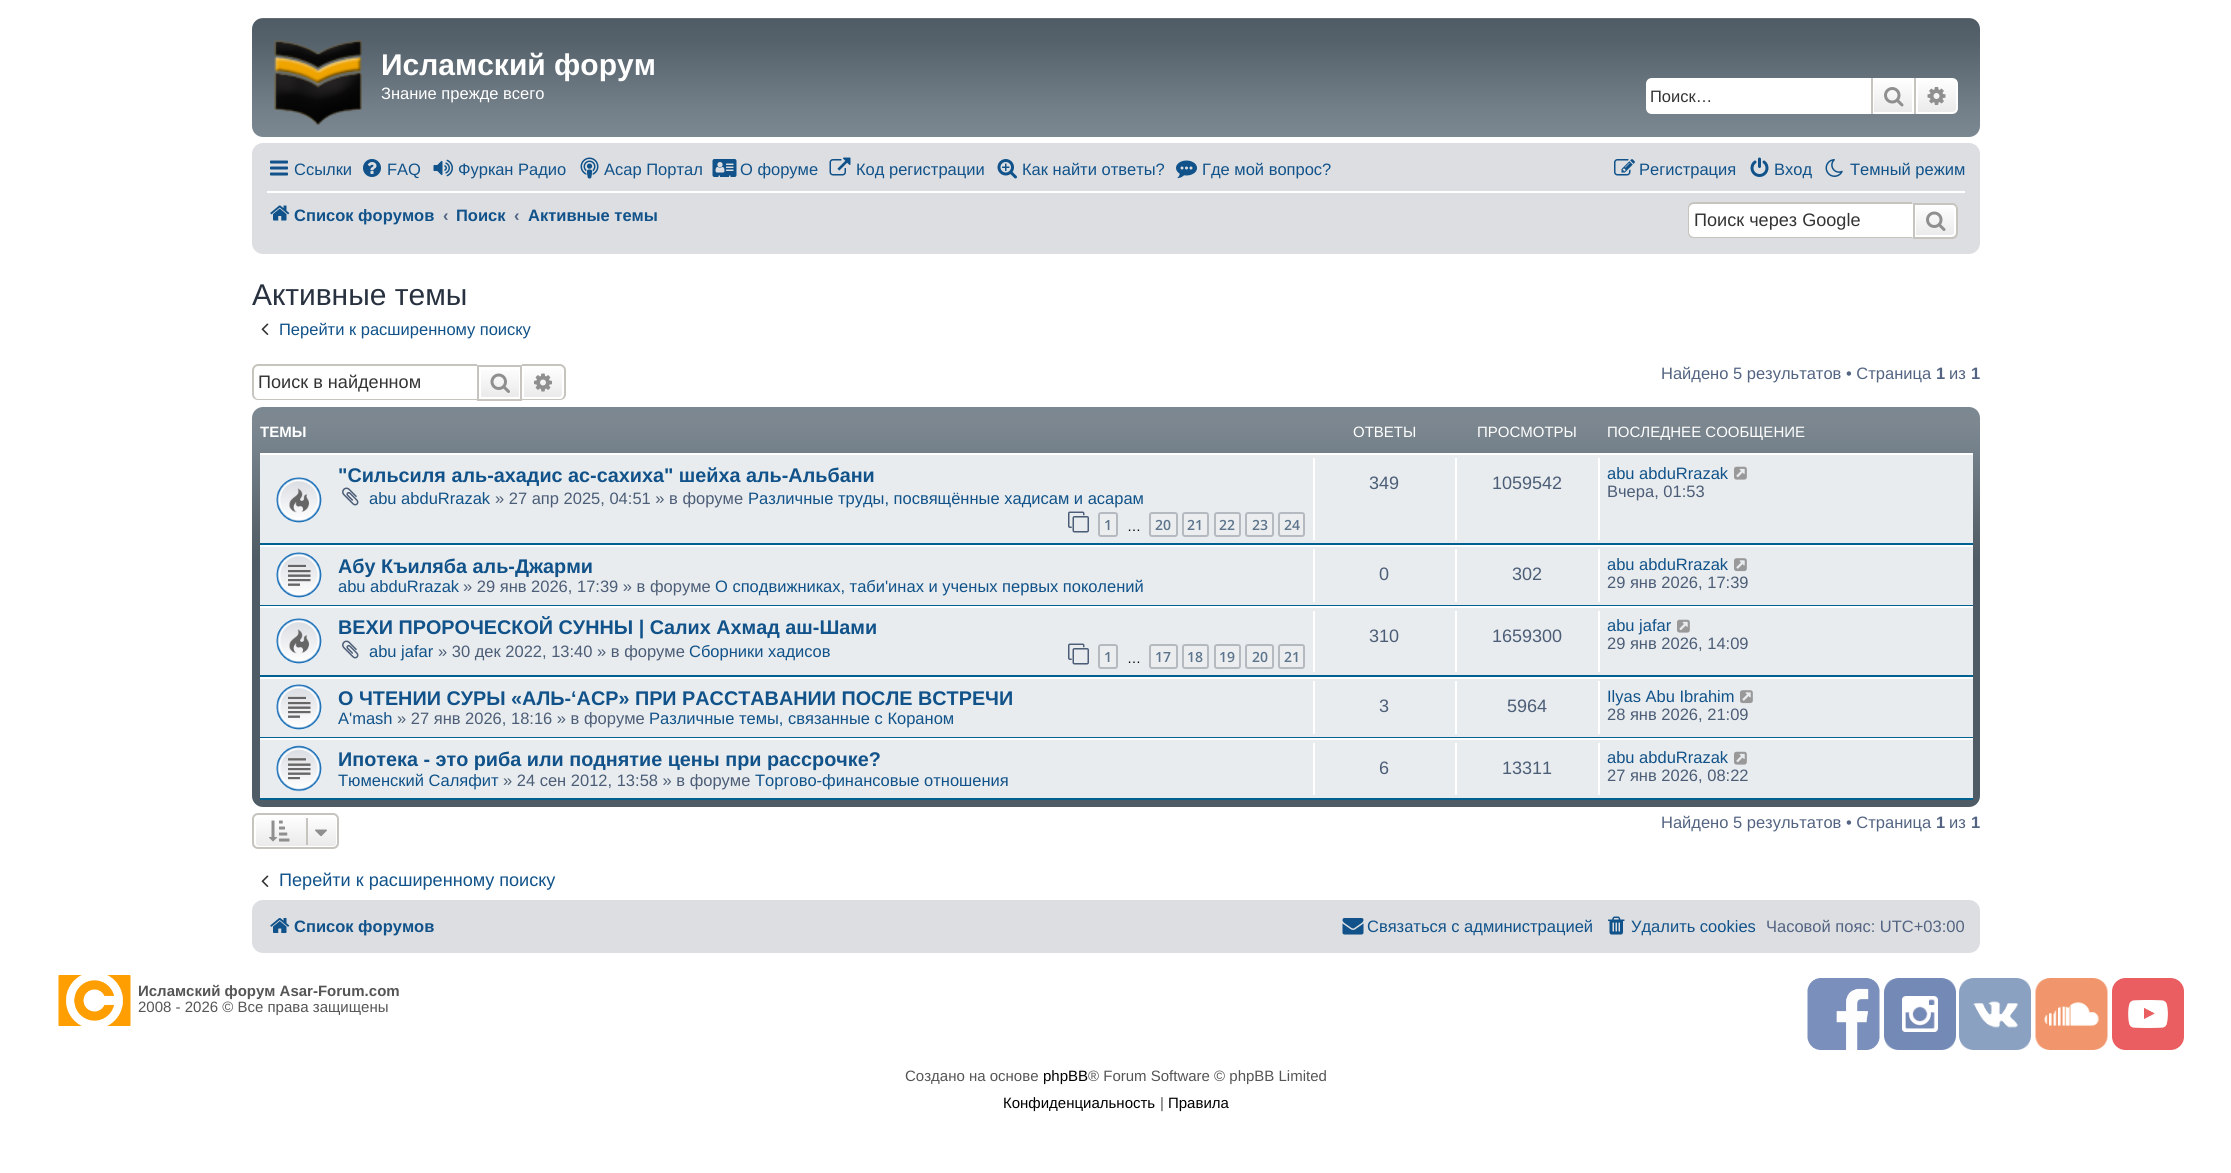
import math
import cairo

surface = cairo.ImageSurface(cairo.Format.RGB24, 2231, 1173)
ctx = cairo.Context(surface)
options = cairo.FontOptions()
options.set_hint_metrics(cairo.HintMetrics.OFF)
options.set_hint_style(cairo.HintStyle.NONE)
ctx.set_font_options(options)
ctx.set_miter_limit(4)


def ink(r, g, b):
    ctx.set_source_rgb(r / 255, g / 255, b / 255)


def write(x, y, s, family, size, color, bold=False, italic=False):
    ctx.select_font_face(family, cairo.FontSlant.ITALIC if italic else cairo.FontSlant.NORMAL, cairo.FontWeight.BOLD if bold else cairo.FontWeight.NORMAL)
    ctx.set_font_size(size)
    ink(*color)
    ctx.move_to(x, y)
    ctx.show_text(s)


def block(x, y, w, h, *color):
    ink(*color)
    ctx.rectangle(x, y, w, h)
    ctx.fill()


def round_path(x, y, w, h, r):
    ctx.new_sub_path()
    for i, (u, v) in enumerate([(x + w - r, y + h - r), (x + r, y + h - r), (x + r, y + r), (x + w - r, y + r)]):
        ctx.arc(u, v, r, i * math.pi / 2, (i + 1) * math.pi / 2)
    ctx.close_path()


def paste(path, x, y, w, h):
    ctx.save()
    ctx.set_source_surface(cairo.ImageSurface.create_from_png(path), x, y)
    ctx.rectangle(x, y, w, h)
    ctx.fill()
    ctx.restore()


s1 = dict(family="Liberation Sans", size=30, color=(255, 255, 255), bold=True)
s2 = dict(family="Liberation Sans", size=16.5, color=(255, 255, 255))
s3 = dict(family="Liberation Sans", size=16.5, color=(51, 51, 51))
s4 = dict(family="Liberation Sans", size=16.5, color=(16, 82, 137))
s5 = dict(family="Liberation Sans", size=16.5, color=(16, 82, 137), bold=True)
s6 = dict(family="Liberation Sans", size=16.5, color=(83, 100, 130), bold=True)
s7 = dict(family="Liberation Sans", size=18.1, color=(51, 51, 51))
s8 = dict(family="Liberation Sans", size=30, color=(40, 49, 63))
s9 = dict(family="Liberation Sans", size=16.5, color=(83, 100, 130))
s10 = dict(family="Liberation Sans", size=15, color=(255, 255, 255), bold=True)
s11 = dict(family="Liberation Sans", size=15, color=(255, 255, 255))
s12 = dict(family="Liberation Sans", size=19.8, color=(16, 82, 137), bold=True)
s13 = dict(family="Liberation Sans", size=16.5, color=(76, 93, 119))
s14 = dict(family="Open Sans SemiBold", size=14, color=(92, 117, 140))
s15 = dict(family="Liberation Sans", size=14, color=(0, 0, 0))
s16 = dict(family="Liberation Sans", size=18, color=(76, 93, 119))
s17 = dict(family="Liberation Sans", size=18.1, color=(16, 82, 137))
s18 = dict(family="Liberation Sans", size=15, color=(85, 85, 85), bold=True)
s19 = dict(family="Liberation Sans", size=15, color=(85, 85, 85))
s20 = dict(family="Liberation Sans", size=15, color=(0, 0, 0))

ink(255, 255, 255)
ctx.paint()
gradient = cairo.LinearGradient(1116, 18, 1116, 137)
gradient.add_color_stop_rgba(0, 0.431, 0.467, 0.498, 1)
gradient.add_color_stop_rgba(0.01, 0.314, 0.361, 0.396, 1)
gradient.add_color_stop_rgba(0.2, 0.337, 0.384, 0.42, 1)
gradient.add_color_stop_rgba(0.75, 0.451, 0.498, 0.533, 1)
gradient.add_color_stop_rgba(1, 0.486, 0.533, 0.569, 1)
ctx.set_source(gradient)
round_path(252, 18, 1728, 119, 11)
ctx.fill()
paste("pic1.png", 274, 40, 88, 85)
write(381, 75, "Исламский форум", **s1)
write(381, 99, "Знание прежде всего", **s2)
ctx.new_path()
ctx.move_to(1652, 78)
ctx.line_to(1871, 78)
ctx.line_to(1871, 114)
ctx.line_to(1652, 114)
ctx.curve_to(1648.5, 114, 1646, 111.5, 1646, 108)
ctx.line_to(1646, 84)
ctx.curve_to(1646, 80.5, 1648.5, 78, 1652, 78)
ctx.close_path()
ctx.fill()
write(1650, 102, "Поиск…", **s3)
gradient = cairo.LinearGradient(1893, 78, 1893, 114)
gradient.add_color_stop_rgba(0, 1, 1, 1, 1)
gradient.add_color_stop_rgba(1, 0.914, 0.914, 0.914, 1)
ctx.set_source(gradient)
ctx.rectangle(1874, 80, 38, 32)
ctx.fill()
ctx.rectangle(1873, 79, 40, 34)
ink(255, 255, 255)
ctx.stroke()
block(1914, 78, 2, 36, 199, 195, 191)
block(1871, 78, 2, 36, 199, 195, 191)
paste("pic2.png", 1884, 87, 20, 20)
gradient = cairo.LinearGradient(1937, 78, 1937, 114)
gradient.add_color_stop_rgba(0, 1, 1, 1, 1)
gradient.add_color_stop_rgba(1, 0.914, 0.914, 0.914, 1)
ctx.set_source(gradient)
ctx.new_path()
ctx.move_to(1917, 79)
ctx.line_to(1952, 79)
ctx.curve_to(1955, 79, 1957, 81, 1957, 84)
ctx.line_to(1957, 108)
ctx.curve_to(1957, 111, 1955, 113, 1952, 113)
ctx.line_to(1917, 113)
ctx.close_path()
ctx.fill_preserve()
ink(255, 255, 255)
ctx.stroke()
paste("pic3.png", 1927, 87, 19, 18)
ink(220, 222, 226)
round_path(252, 143, 1728, 111, 11)
ctx.fill()
paste("pic4.png", 270, 160, 18, 16)
write(294, 175, "Ссылки", **s4)
paste("pic5.png", 363, 159, 18, 18)
write(387, 175, "FAQ", **s4)
paste("pic6.png", 433, 159, 20, 18)
write(458, 175, "Фуркан Радио", **s4)
paste("pic7.png", 580, 157, 19, 22)
write(604, 175, "Асар Портал", **s4)
paste("pic8.png", 712, 159, 25, 18)
write(740, 175, "О форуме", **s4)
paste("pic9.png", 829, 157, 22, 19)
write(856, 175, "Код регистрации", **s4)
paste("pic10.png", 997, 159, 20, 20)
write(1022, 175, "Как найти ответы?", **s4)
paste("pic11.png", 1176, 160, 21, 19)
write(1202, 175, "Где мой вопрос?", **s4)
paste("pic12.png", 1614, 159, 21, 17)
write(1639, 175, "Регистрация", **s4)
paste("pic13.png", 1750, 157, 19, 20)
write(1774, 175, "Вход", **s4)
paste("pic14.png", 1825, 159, 18, 18)
write(1850, 175, "Темный режим", **s4)
block(267, 191, 1698, 2, 255, 255, 255)
paste("pic15.png", 270, 205, 20, 16)
write(294, 221, "Список форумов", **s5)
write(443, 221, "‹", **s6)
write(456, 221, "Поиск", **s5)
write(514, 221, "‹", **s6)
write(528, 221, "Активные темы", **s5)
ink(255, 255, 255)
ctx.new_path()
ctx.move_to(1694, 204)
ctx.line_to(1913, 204)
ctx.line_to(1913, 237)
ctx.line_to(1694, 237)
ctx.curve_to(1691, 237, 1689, 235, 1689, 232)
ctx.line_to(1689, 209)
ctx.curve_to(1689, 206, 1691, 204, 1694, 204)
ctx.close_path()
ctx.fill()
ink(199, 195, 191)
ctx.set_fill_rule(cairo.FillRule.EVEN_ODD)
ctx.new_path()
ctx.move_to(1694, 202)
ctx.line_to(1912, 202)
ctx.line_to(1912, 238)
ctx.line_to(1694, 238)
ctx.curve_to(1690, 238, 1688, 236, 1688, 232)
ctx.line_to(1688, 208)
ctx.curve_to(1688, 205, 1690, 202, 1694, 202)
ctx.close_path()
ctx.move_to(1694, 204)
ctx.line_to(1912, 204)
ctx.line_to(1912, 237)
ctx.line_to(1694, 237)
ctx.curve_to(1691, 237, 1689, 235, 1689, 232)
ctx.line_to(1689, 208)
ctx.curve_to(1689, 206, 1691, 204, 1694, 204)
ctx.close_path()
ctx.fill()
write(1694, 226, "Поиск через Google", **s7)
ctx.save()
ctx.set_fill_rule(cairo.FillRule.WINDING)
ctx.new_path()
ctx.move_to(1913, 203)
ctx.line_to(1952, 203)
ctx.curve_to(1955.5, 203, 1958, 205.5, 1958, 209)
ctx.line_to(1958, 233)
ctx.curve_to(1958, 236.5, 1955.5, 239, 1952, 239)
ctx.line_to(1913, 239)
ctx.close_path()
ctx.clip()
gradient = cairo.LinearGradient(1935, 204, 1935, 237)
gradient.add_color_stop_rgba(0, 1, 1, 1, 1)
gradient.add_color_stop_rgba(1, 0.914, 0.914, 0.914, 1)
ctx.set_source(gradient)
ctx.rectangle(1916, 204, 42, 33)
ctx.fill()
ctx.restore()
ctx.new_path()
ctx.move_to(1915, 205)
ctx.line_to(1951, 205)
ctx.curve_to(1953, 205, 1955, 207, 1955, 209)
ctx.line_to(1955, 232)
ctx.curve_to(1955, 234, 1953, 236, 1951, 236)
ctx.line_to(1915, 236)
ctx.close_path()
ink(255, 255, 255)
ctx.stroke()
ctx.new_path()
ctx.move_to(1914, 204)
ctx.line_to(1952, 204)
ctx.curve_to(1955, 204, 1957, 206, 1957, 209)
ctx.line_to(1957, 233)
ctx.curve_to(1957, 236, 1955, 238, 1952, 238)
ctx.line_to(1914, 238)
ctx.close_path()
ink(199, 195, 191)
ctx.stroke()
paste("pic16.png", 1926, 211, 20, 20)
write(252, 305, "Активные темы", **s8)
paste("pic17.png", 261, 323, 8, 12)
write(279, 335, "Перейти к расширенному поиску", **s4)
ink(199, 195, 191)
ctx.new_path()
ctx.move_to(258, 364)
ctx.line_to(477, 364)
ctx.line_to(477, 400)
ctx.line_to(258, 400)
ctx.curve_to(255, 400, 252, 398, 252, 394)
ctx.line_to(252, 370)
ctx.curve_to(252, 367, 255, 364, 258, 364)
ctx.close_path()
ctx.move_to(258, 366)
ctx.line_to(477, 366)
ctx.line_to(477, 399)
ctx.line_to(258, 399)
ctx.curve_to(256, 399, 254, 397, 254, 394)
ctx.line_to(254, 370)
ctx.curve_to(254, 368, 256, 366, 258, 366)
ctx.close_path()
ctx.fill()
write(258, 388, "Поиск в найденном", **s7)
gradient = cairo.LinearGradient(500, 366, 500, 399)
gradient.add_color_stop_rgba(0, 1, 1, 1, 1)
gradient.add_color_stop_rgba(1, 0.914, 0.914, 0.914, 1)
ctx.set_source(gradient)
ctx.rectangle(481, 370, 38, 27)
ctx.fill()
ctx.rectangle(478, 366, 43, 34)
ink(199, 195, 191)
ctx.stroke()
paste("pic18.png", 490, 373, 20, 20)
gradient = cairo.LinearGradient(543, 366, 543, 399)
gradient.add_color_stop_rgba(0, 1, 1, 1, 1)
gradient.add_color_stop_rgba(1, 0.914, 0.914, 0.914, 1)
ctx.set_source(gradient)
ctx.new_path()
ctx.move_to(523, 367)
ctx.line_to(559, 367)
ctx.curve_to(561, 367, 563, 369, 563, 371)
ctx.line_to(563, 394)
ctx.curve_to(563, 396, 561, 398, 559, 398)
ctx.line_to(523, 398)
ctx.close_path()
ctx.fill_preserve()
ink(255, 255, 255)
ctx.stroke()
ink(199, 195, 191)
ctx.new_path()
ctx.move_to(522, 364)
ctx.line_to(560, 364)
ctx.curve_to(563, 364, 566, 367, 566, 370)
ctx.line_to(566, 394)
ctx.curve_to(566, 398, 563, 400, 560, 400)
ctx.line_to(522, 400)
ctx.close_path()
ctx.move_to(522, 366)
ctx.line_to(560, 366)
ctx.curve_to(562, 366, 564, 368, 564, 370)
ctx.line_to(564, 394)
ctx.curve_to(564, 397, 562, 399, 560, 399)
ctx.line_to(522, 399)
ctx.close_path()
ctx.fill()
paste("pic19.png", 534, 373, 18, 19)
write(1661, 379, "Найдено 5 результатов • Страница", **s9)
write(1936, 379, "1", **s6)
write(1949, 379, "из", **s9)
write(1971, 379, "1", **s6)
gradient = cairo.LinearGradient(1116, 406, 1116, 807)
gradient.add_color_stop_rgba(0, 0.486, 0.533, 0.569, 1)
gradient.add_color_stop_rgba(0.04, 0.486, 0.529, 0.565, 1)
gradient.add_color_stop_rgba(0.1, 0.463, 0.51, 0.545, 1)
gradient.add_color_stop_rgba(0.29, 0.357, 0.4, 0.435, 1)
gradient.add_color_stop_rgba(0.38, 0.314, 0.361, 0.396, 1)
gradient.add_color_stop_rgba(1, 0.314, 0.361, 0.396, 1)
ctx.set_source(gradient)
round_path(252, 407, 1728, 400, 11)
ctx.fill()
ctx.save()
ctx.set_fill_rule(cairo.FillRule.WINDING)
ctx.rectangle(260, 414, 1713, 39)
ctx.clip()
write(260, 437, "ТЕМЫ", **s10)
ctx.restore()
write(1353, 437, "ОТВЕТЫ", **s11)
write(1477, 437, "ПРОСМОТРЫ", **s11)
write(1607, 437, "ПОСЛЕДНЕЕ СООБЩЕНИЕ", **s11)
block(260, 455, 1713, 88, 232, 236, 238)
block(260, 453, 1713, 2, 255, 255, 255)
block(260, 543, 1713, 2, 0, 96, 143)
paste("pic20.png", 276, 477, 46, 46)
write(338, 482, "\"Сильсиля аль-ахадис ас-сахиха\" шейха аль-Альбани", **s12)
paste("pic21.png", 342, 487, 17, 19)
write(369, 504, "abu abduRrazak", **s4)
write(495, 504, "» 27 апр 2025, 04:51 » в форуме", **s13)
write(748, 504, "Различные труды, посвящённые хадисам и асарам", **s4)
paste("pic22.png", 1068, 511, 21, 22)
ink(236, 237, 238)
round_path(1099, 513, 18, 23, 2)
ctx.fill_preserve()
ink(180, 186, 192)
ctx.stroke()
write(1104, 530, "1", **s14)
write(1127, 531, "…", **s15)
ink(236, 237, 238)
round_path(1150, 513, 27, 23, 2)
ctx.fill_preserve()
ink(180, 186, 192)
ctx.stroke()
write(1155, 530, "20", **s14)
ink(236, 237, 238)
round_path(1183, 513, 25, 23, 2)
ctx.fill_preserve()
ink(180, 186, 192)
ctx.stroke()
write(1187, 530, "21", **s14)
ink(236, 237, 238)
round_path(1215, 513, 25, 23, 2)
ctx.fill_preserve()
ink(180, 186, 192)
ctx.stroke()
write(1219, 530, "22", **s14)
ink(236, 237, 238)
round_path(1246, 513, 27, 23, 2)
ctx.fill_preserve()
ink(180, 186, 192)
ctx.stroke()
write(1252, 530, "23", **s14)
ink(236, 237, 238)
round_path(1279, 513, 25, 23, 2)
ctx.fill_preserve()
ink(180, 186, 192)
ctx.stroke()
write(1284, 530, "24", **s14)
block(1313, 458, 2, 82, 255, 255, 255)
write(1369, 489, "349", **s16)
block(1455, 458, 2, 82, 255, 255, 255)
write(1492, 489, "1059542", **s16)
block(1598, 458, 2, 82, 255, 255, 255)
write(1607, 479, "abu abduRrazak", **s4)
paste("pic23.png", 1734, 466, 13, 14)
write(1607, 497, "Вчера, 01:53", **s13)
block(260, 547, 1713, 58, 232, 236, 238)
block(260, 545, 1713, 2, 255, 255, 255)
block(260, 605, 1713, 1, 0, 96, 143)
paste("pic24.png", 276, 552, 46, 46)
write(338, 573, "Абу Къиляба аль-Джарми", **s12)
write(338, 592, "abu abduRrazak", **s4)
write(463, 592, "» 29 янв 2026, 17:39 » в форуме", **s13)
write(715, 592, "О сподвижниках, таби'инах и ученых первых поколений", **s4)
block(1313, 549, 2, 53, 255, 255, 255)
write(1379, 580, "0", **s16)
block(1455, 549, 2, 53, 255, 255, 255)
write(1512, 580, "302", **s16)
block(1598, 549, 2, 53, 255, 255, 255)
write(1607, 570, "abu abduRrazak", **s4)
paste("pic25.png", 1734, 558, 13, 14)
write(1607, 588, "29 янв 2026, 17:39", **s13)
block(260, 608, 1713, 67, 232, 236, 238)
block(260, 606, 1713, 2, 255, 255, 255)
block(260, 675, 1713, 2, 0, 96, 143)
paste("pic20.png", 276, 618, 46, 46)
write(338, 634, "ВЕХИ ПРОРОЧЕСКОЙ СУННЫ | Салих Ахмад аш-Шами", **s12)
paste("pic21.png", 342, 640, 17, 19)
write(369, 657, "abu jafar", **s4)
write(438, 657, "» 30 дек 2022, 13:40 » в форуме", **s13)
write(689, 657, "Сборники хадисов", **s4)
paste("pic22.png", 1068, 643, 21, 22)
ink(236, 237, 238)
round_path(1099, 645, 18, 23, 2)
ctx.fill_preserve()
ink(180, 186, 192)
ctx.stroke()
write(1104, 662, "1", **s14)
write(1127, 663, "…", **s15)
ink(236, 237, 238)
round_path(1150, 645, 27, 23, 2)
ctx.fill_preserve()
ink(180, 186, 192)
ctx.stroke()
write(1155, 662, "17", **s14)
ink(236, 237, 238)
round_path(1183, 645, 25, 23, 2)
ctx.fill_preserve()
ink(180, 186, 192)
ctx.stroke()
write(1187, 662, "18", **s14)
ink(236, 237, 238)
round_path(1215, 645, 25, 23, 2)
ctx.fill_preserve()
ink(180, 186, 192)
ctx.stroke()
write(1219, 662, "19", **s14)
ink(236, 237, 238)
round_path(1246, 645, 27, 23, 2)
ctx.fill_preserve()
ink(180, 186, 192)
ctx.stroke()
write(1252, 662, "20", **s14)
ink(236, 237, 238)
round_path(1279, 645, 25, 23, 2)
ctx.fill_preserve()
ink(180, 186, 192)
ctx.stroke()
write(1284, 662, "21", **s14)
block(1313, 611, 2, 61, 255, 255, 255)
write(1369, 642, "310", **s16)
block(1455, 611, 2, 61, 255, 255, 255)
write(1492, 642, "1659300", **s16)
block(1598, 611, 2, 61, 255, 255, 255)
write(1607, 631, "abu jafar", **s4)
paste("pic23.png", 1677, 619, 13, 14)
write(1607, 649, "29 янв 2026, 14:09", **s13)
block(260, 679, 1713, 58, 232, 236, 238)
block(260, 677, 1713, 2, 255, 255, 255)
block(260, 737, 1713, 1, 0, 96, 143)
paste("pic24.png", 276, 684, 46, 46)
write(338, 705, "О ЧТЕНИИ СУРЫ «АЛЬ-‘АСР» ПРИ РАССТАВАНИИ ПОСЛЕ ВСТРЕЧИ", **s12)
write(338, 724, "A'mash", **s4)
write(397, 724, "» 27 янв 2026, 18:16 » в форуме", **s13)
write(649, 724, "Различные темы, связанные с Кораном", **s4)
block(1313, 681, 2, 53, 255, 255, 255)
write(1379, 712, "3", **s16)
block(1455, 681, 2, 53, 255, 255, 255)
write(1507, 712, "5964", **s16)
block(1598, 681, 2, 53, 255, 255, 255)
write(1607, 702, "Ilyas Abu Ibrahim", **s4)
paste("pic25.png", 1740, 690, 13, 14)
write(1607, 720, "28 янв 2026, 21:09", **s13)
block(260, 740, 1713, 58, 232, 236, 238)
block(260, 738, 1713, 2, 255, 255, 255)
block(260, 798, 1713, 2, 0, 96, 143)
paste("pic26.png", 276, 745, 46, 47)
write(338, 766, "Ипотека - это риба или поднятие цены при рассрочке?", **s12)
write(338, 786, "Тюменский Саляфит", **s4)
write(503, 786, "» 24 сен 2012, 13:58 » в форуме", **s13)
write(755, 786, "Торгово-финансовые отношения", **s4)
block(1313, 743, 2, 52, 255, 255, 255)
write(1379, 774, "6", **s16)
block(1455, 743, 2, 52, 255, 255, 255)
write(1502, 774, "13311", **s16)
block(1598, 743, 2, 52, 255, 255, 255)
write(1607, 763, "abu abduRrazak", **s4)
paste("pic23.png", 1734, 751, 13, 14)
write(1607, 781, "27 янв 2026, 08:22", **s13)
ctx.save()
ctx.set_fill_rule(cairo.FillRule.WINDING)
round_path(252, 813, 87, 36, 6)
ctx.clip()
gradient = cairo.LinearGradient(296, 815, 296, 848)
gradient.add_color_stop_rgba(0, 1, 1, 1, 1)
gradient.add_color_stop_rgba(1, 0.914, 0.914, 0.914, 1)
ctx.set_source(gradient)
ctx.rectangle(252, 815, 87, 33)
ctx.fill()
ctx.restore()
round_path(255, 816, 82, 31, 4)
ink(255, 255, 255)
ctx.stroke()
round_path(253, 814, 85, 34, 5)
ink(199, 195, 191)
ctx.stroke()
paste("pic27.png", 269, 820, 21, 22)
block(306, 818, 2, 27, 199, 195, 191)
paste("pic28.png", 315, 829, 12, 8)
write(1661, 828, "Найдено 5 результатов • Страница", **s9)
write(1936, 828, "1", **s6)
write(1949, 828, "из", **s9)
write(1971, 828, "1", **s6)
paste("pic17.png", 261, 875, 8, 12)
write(279, 886, "Перейти к расширенному поиску", **s17)
ink(220, 222, 226)
round_path(252, 900, 1728, 53, 11)
ctx.fill()
paste("pic29.png", 270, 918, 20, 15)
write(294, 932, "Список форумов", **s5)
paste("pic30.png", 1342, 918, 22, 17)
write(1367, 932, "Связаться с администрацией", **s4)
paste("pic31.png", 1608, 916, 17, 19)
write(1631, 932, "Удалить cookies", **s4)
write(1766, 932, "Часовой пояс: UTC+03:00", **s9)
paste("pic32.png", 58, 975, 73, 51)
write(138, 996, "Исламский форум Asar-Forum.com", **s18)
write(138, 1012, "2008 - 2026 © Все права защищены", **s19)
paste("pic33.png", 1807, 978, 73, 72)
paste("pic34.png", 1884, 978, 72, 72)
paste("pic35.png", 1959, 978, 72, 72)
paste("pic36.png", 2035, 978, 73, 72)
paste("pic37.png", 2112, 978, 72, 72)
write(905, 1081, "Создано на основе", **s19)
write(1043, 1081, "phpBB", **s20)
write(1088, 1081, "® Forum Software © phpBB Limited", **s19)
write(1003, 1108, "Конфиденциальность", **s20)
write(1160, 1108, "|", **s19)
write(1168, 1108, "Правила", **s20)
surface.write_to_png("screenshot.png")
